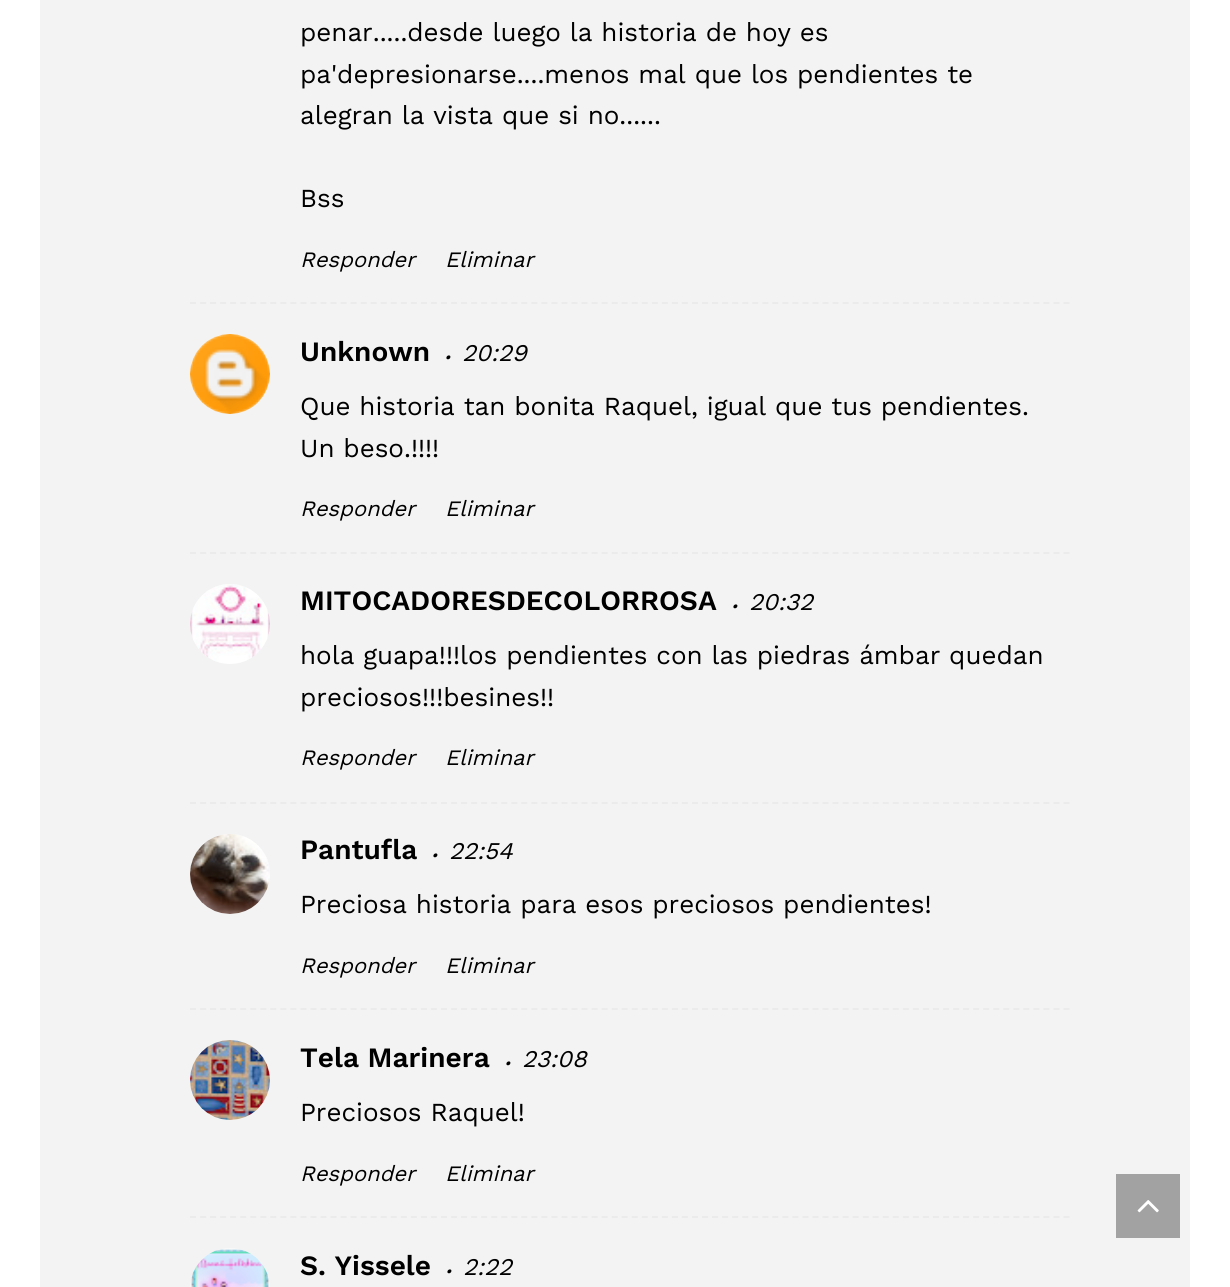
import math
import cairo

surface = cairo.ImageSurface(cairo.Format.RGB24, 1230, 1287)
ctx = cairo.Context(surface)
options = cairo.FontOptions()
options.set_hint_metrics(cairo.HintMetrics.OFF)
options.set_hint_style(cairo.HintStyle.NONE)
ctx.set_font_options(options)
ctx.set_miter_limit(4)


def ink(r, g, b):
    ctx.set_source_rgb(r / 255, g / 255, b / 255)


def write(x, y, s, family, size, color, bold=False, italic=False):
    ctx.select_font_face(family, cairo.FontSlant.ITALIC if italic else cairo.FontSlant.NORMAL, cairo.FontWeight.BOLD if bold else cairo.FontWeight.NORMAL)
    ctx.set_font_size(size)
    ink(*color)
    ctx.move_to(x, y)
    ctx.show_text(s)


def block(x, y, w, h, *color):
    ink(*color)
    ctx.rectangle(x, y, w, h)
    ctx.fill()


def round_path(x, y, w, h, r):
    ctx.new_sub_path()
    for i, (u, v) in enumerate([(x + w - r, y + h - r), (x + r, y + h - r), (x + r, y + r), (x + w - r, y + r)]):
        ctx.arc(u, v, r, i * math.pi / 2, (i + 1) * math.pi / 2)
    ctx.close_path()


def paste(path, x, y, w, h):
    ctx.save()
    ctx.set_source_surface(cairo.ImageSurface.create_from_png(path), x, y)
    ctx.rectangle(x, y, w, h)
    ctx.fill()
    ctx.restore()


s1 = dict(family="Work Sans", size=26, color=(0, 0, 0))
s2 = dict(family="Work Sans", size=22, color=(0, 0, 0), italic=True)
s3 = dict(family="Work Sans SemiBold", size=28, color=(0, 0, 0))
s4 = dict(family="Work Sans", size=30, color=(0, 0, 0), italic=True)
s5 = dict(family="Work Sans", size=24, color=(0, 0, 0), italic=True)

ink(243, 243, 243)
ctx.paint()
ctx.rectangle(20, -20, 1190, 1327)
ink(255, 255, 255)
ctx.set_line_width(40)
ctx.stroke()
write(300, 41, "penar.....desde luego la historia de hoy es", **s1)
write(300, 83, "pa'depresionarse....menos mal que los pendientes te", **s1)
write(300, 124, "alegran la vista que si no......", **s1)
write(300, 207, "Bss", **s1)
write(300, 267, "Responder", **s2)
write(445, 267, "Eliminar", **s2)
ctx.new_path()
ctx.move_to(190, 303)
ctx.line_to(1070, 303)
ink(235, 235, 235)
ctx.set_line_width(2)
ctx.set_dash([6, 4.04])
ctx.stroke()
ink(249, 249, 249)
ctx.arc(230, 374, 40, 0, 2 * math.pi)
ctx.fill()
paste("pic1.png", 190, 334, 80, 80)
write(300, 361, "Unknown", **s3)
write(444, 359, ".", **s4)
write(462, 361, "20:29", **s5)
write(300, 415, "Que historia tan bonita Raquel, igual que tus pendientes.", **s1)
write(300, 457, "Un beso.!!!!", **s1)
write(300, 516, "Responder", **s2)
write(445, 516, "Eliminar", **s2)
ctx.new_path()
ctx.move_to(190, 553)
ctx.line_to(1070, 553)
ink(235, 235, 235)
ctx.stroke()
ink(249, 249, 249)
ctx.arc(230, 624, 40, 0, 2 * math.pi)
ctx.fill()
paste("pic2.png", 190, 584, 80, 80)
write(300, 610, "MITOCADORESDECOLORROSA", **s3)
write(731, 608, ".", **s4)
write(749, 610, "20:32", **s5)
write(300, 664, "hola guapa!!!los pendientes con las piedras ámbar quedan", **s1)
write(300, 706, "preciosos!!!besines!!", **s1)
write(300, 765, "Responder", **s2)
write(445, 765, "Eliminar", **s2)
ctx.new_path()
ctx.move_to(190, 803)
ctx.line_to(1070, 803)
ink(235, 235, 235)
ctx.stroke()
ink(249, 249, 249)
ctx.arc(230, 874, 40, 0, 2 * math.pi)
ctx.fill()
paste("pic3.png", 190, 834, 80, 80)
write(300, 859, "Pantufla", **s3)
write(431, 857, ".", **s4)
write(449, 859, "22:54", **s5)
write(300, 913, "Preciosa historia para esos preciosos pendientes!", **s1)
write(300, 973, "Responder", **s2)
write(445, 973, "Eliminar", **s2)
ctx.new_path()
ctx.move_to(190, 1009)
ctx.line_to(1070, 1009)
ink(235, 235, 235)
ctx.stroke()
ink(249, 249, 249)
ctx.arc(230, 1080, 40, 0, 2 * math.pi)
ctx.fill()
paste("pic4.png", 190, 1040, 80, 80)
write(300, 1067, "Tela Marinera", **s3)
write(504, 1065, ".", **s4)
write(522, 1067, "23:08", **s5)
write(300, 1121, "Preciosos Raquel!", **s1)
write(300, 1181, "Responder", **s2)
write(445, 1181, "Eliminar", **s2)
ctx.new_path()
ctx.move_to(190, 1217)
ctx.line_to(1070, 1217)
ink(235, 235, 235)
ctx.stroke()
ink(249, 249, 249)
round_path(190, 1248, 80, 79, 40)
ctx.fill()
paste("pic5.png", 191, 1249, 78, 38)
write(300, 1275, "S. Yissele", **s3)
write(445, 1273, ".", **s4)
write(463, 1275, "2:22", **s5)
block(1116, 1174, 64, 64, 162, 162, 162)
paste("pic6.png", 1137, 1200, 22, 13)
surface.write_to_png("screenshot.png")
